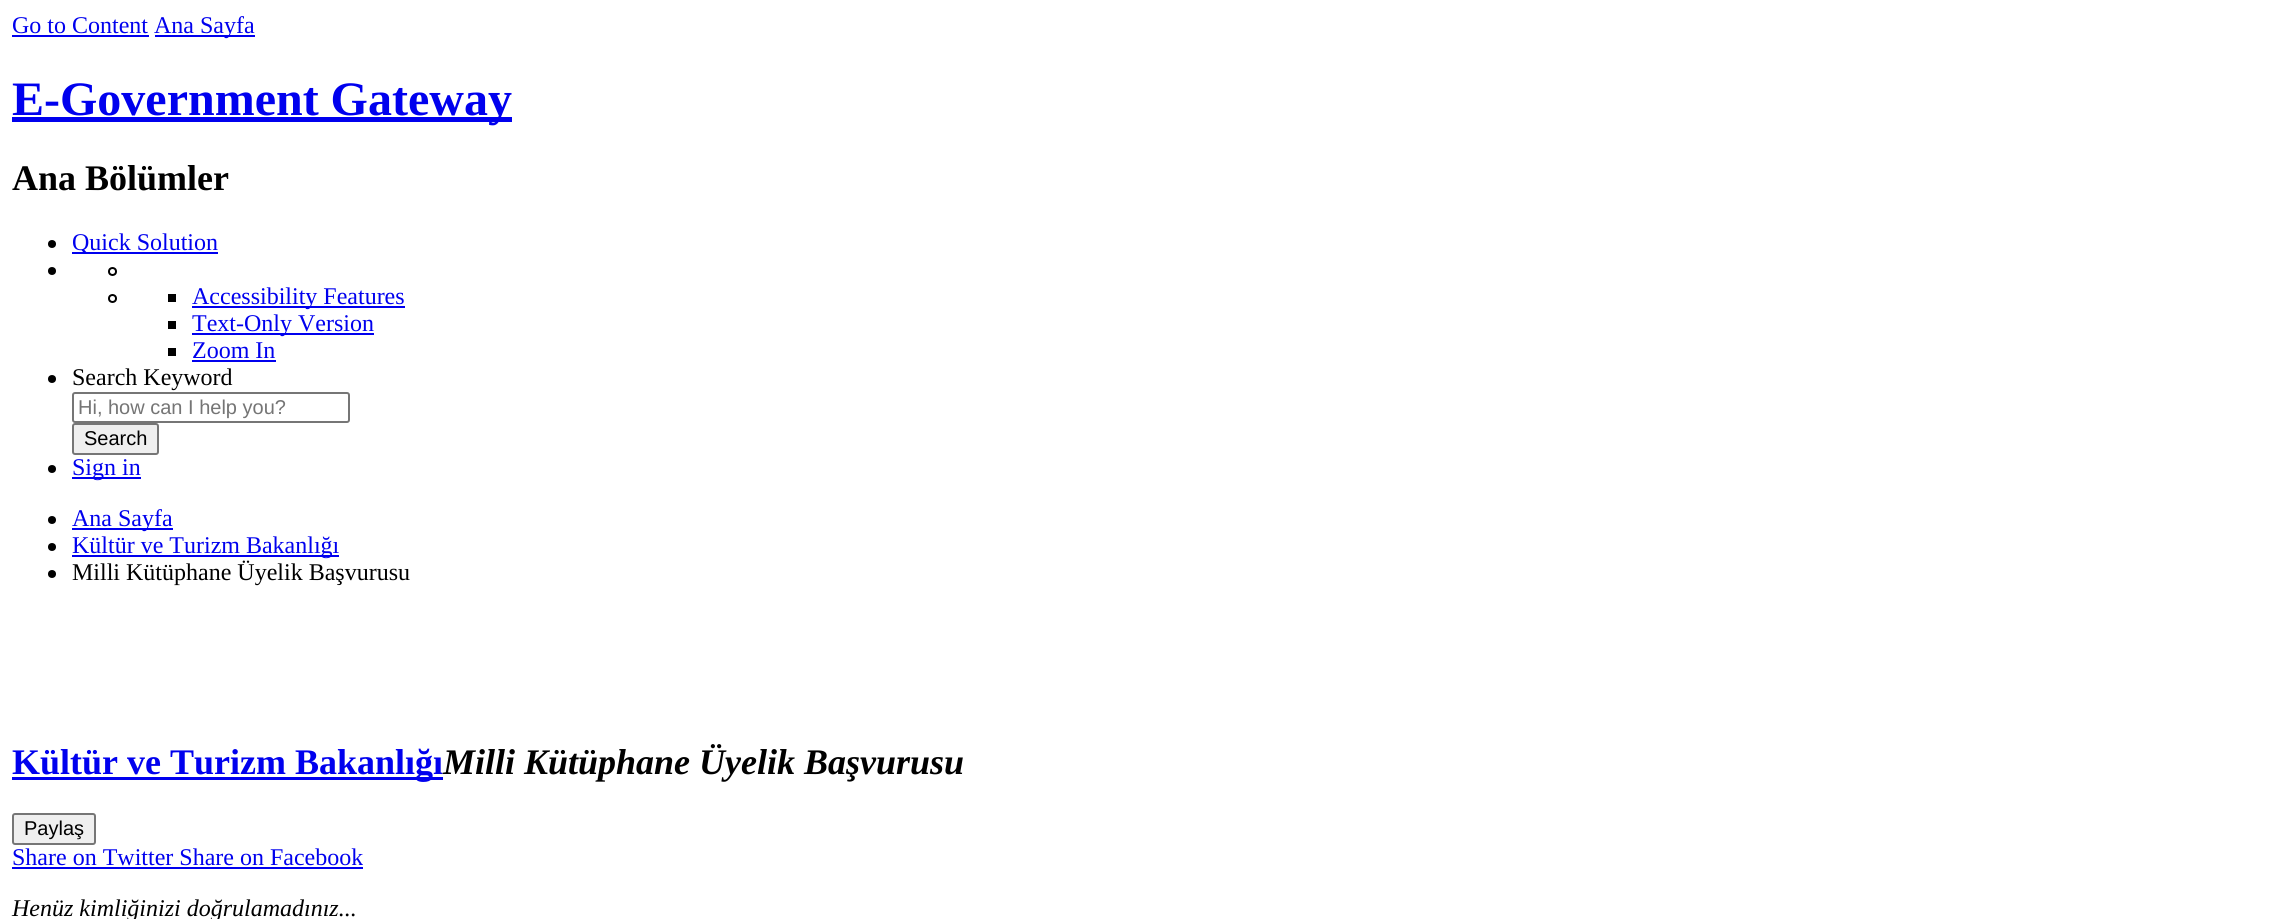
import math
import cairo

surface = cairo.ImageSurface(cairo.Format.RGB24, 2292, 919)
ctx = cairo.Context(surface)
options = cairo.FontOptions()
options.set_hint_metrics(cairo.HintMetrics.OFF)
options.set_hint_style(cairo.HintStyle.NONE)
ctx.set_font_options(options)
ctx.set_miter_limit(4)


def ink(r, g, b):
    ctx.set_source_rgb(r / 255, g / 255, b / 255)


def write(x, y, s, family, size, color, bold=False, italic=False):
    ctx.select_font_face(family, cairo.FontSlant.ITALIC if italic else cairo.FontSlant.NORMAL, cairo.FontWeight.BOLD if bold else cairo.FontWeight.NORMAL)
    ctx.set_font_size(size)
    ink(*color)
    ctx.move_to(x, y)
    ctx.show_text(s)


def block(x, y, w, h, *color):
    ink(*color)
    ctx.rectangle(x, y, w, h)
    ctx.fill()


def round_path(x, y, w, h, r):
    ctx.new_sub_path()
    for i, (u, v) in enumerate([(x + w - r, y + h - r), (x + r, y + h - r), (x + r, y + r), (x + w - r, y + r)]):
        ctx.arc(u, v, r, i * math.pi / 2, (i + 1) * math.pi / 2)
    ctx.close_path()


s1 = dict(family="Liberation Serif", size=24, color=(0, 0, 238))
s2 = dict(family="Liberation Serif", size=48, color=(0, 0, 238), bold=True)
s3 = dict(family="Liberation Serif", size=36, color=(0, 0, 0), bold=True)
s4 = dict(family="Liberation Serif", size=24, color=(0, 0, 0))
s5 = dict(family="Liberation Sans", size=20, color=(117, 117, 117))
s6 = dict(family="Liberation Sans", size=20, color=(0, 0, 0))
s7 = dict(family="Liberation Serif", size=36, color=(0, 0, 238), bold=True)
s8 = dict(family="Liberation Serif", size=36, color=(0, 0, 0), bold=True, italic=True)
s9 = dict(family="Liberation Serif", size=24, color=(0, 0, 0), italic=True)

ink(255, 255, 255)
ctx.paint()
write(12, 33, "Go to Content", **s1)
block(12, 35, 137, 2, 0, 0, 238)
block(155, 35, 100, 2, 0, 0, 238)
write(154, 33, "Ana Sayfa", **s1)
block(12, 117, 500, 5, 0, 0, 238)
write(12, 115, "E-Government Gateway", **s2)
write(12, 190, "Ana Bölümler", **s3)
ctx.new_path()
ctx.arc(52, 244, 4, 0, 2 * math.pi)
ctx.fill()
block(72, 252, 146, 2, 0, 0, 238)
write(72, 250, "Quick Solution", **s1)
ink(0, 0, 0)
ctx.new_path()
ctx.arc(52, 271, 4, 0, 2 * math.pi)
ctx.fill()
ctx.arc(112.5, 271.5, 3.5, 0, 2 * math.pi)
ctx.stroke()
ctx.arc(112.5, 298.5, 3.5, 0, 2 * math.pi)
ctx.stroke()
block(168, 294, 8, 8, 0, 0, 0)
block(192, 306, 213, 2, 0, 0, 238)
write(192, 304, "Accessibility Features", **s1)
block(168, 321, 8, 8, 0, 0, 0)
block(192, 333, 182, 2, 0, 0, 238)
write(192, 331, "Text-Only Version", **s1)
block(168, 348, 8, 8, 0, 0, 0)
write(192, 358, "Zoom In", **s1)
block(192, 360, 84, 2, 0, 0, 238)
ink(0, 0, 0)
ctx.new_path()
ctx.arc(52, 379, 4, 0, 2 * math.pi)
ctx.fill()
write(72, 385, "Search Keyword", **s4)
round_path(73, 393, 276, 29, 2)
ink(118, 118, 118)
ctx.stroke()
write(78, 414, "Hi, how can I help you?", **s5)
ink(239, 239, 239)
round_path(73, 424, 85, 30, 2)
ctx.fill_preserve()
ink(118, 118, 118)
ctx.stroke()
write(84, 445, "Search", **s6)
ctx.new_path()
ctx.arc(52, 469, 4, 0, 2 * math.pi)
ctx.fill()
block(72, 477, 69, 2, 0, 0, 238)
write(72, 475, "Sign in", **s1)
ink(0, 0, 0)
ctx.new_path()
ctx.arc(52, 520, 4, 0, 2 * math.pi)
ctx.fill()
block(72, 528, 101, 2, 0, 0, 238)
write(72, 526, "Ana Sayfa", **s1)
ink(0, 0, 0)
ctx.new_path()
ctx.arc(52, 547, 4, 0, 2 * math.pi)
ctx.fill()
block(72, 555, 267, 2, 0, 0, 238)
write(72, 553, "Kültür ve Turizm Bakanlığı", **s1)
ink(0, 0, 0)
ctx.new_path()
ctx.arc(52, 574, 4, 0, 2 * math.pi)
ctx.fill()
write(72, 580, "Milli Kütüphane Üyelik Başvurusu", **s4)
block(12, 777, 431, 3, 0, 0, 238)
write(12, 774, "Kültür ve Turizm Bakanlığı", **s7)
write(443, 774, "Milli Kütüphane Üyelik Başvurusu", **s8)
ink(239, 239, 239)
round_path(13, 814, 82, 30, 2)
ctx.fill_preserve()
ink(118, 118, 118)
ctx.stroke()
write(24, 835, "Paylaş", **s6)
write(12, 865, "Share on Twitter Share on Facebook", **s1)
block(12, 867, 351, 2, 0, 0, 238)
write(12, 916, "Henüz kimliğinizi doğrulamadınız...", **s9)
surface.write_to_png("screenshot.png")
